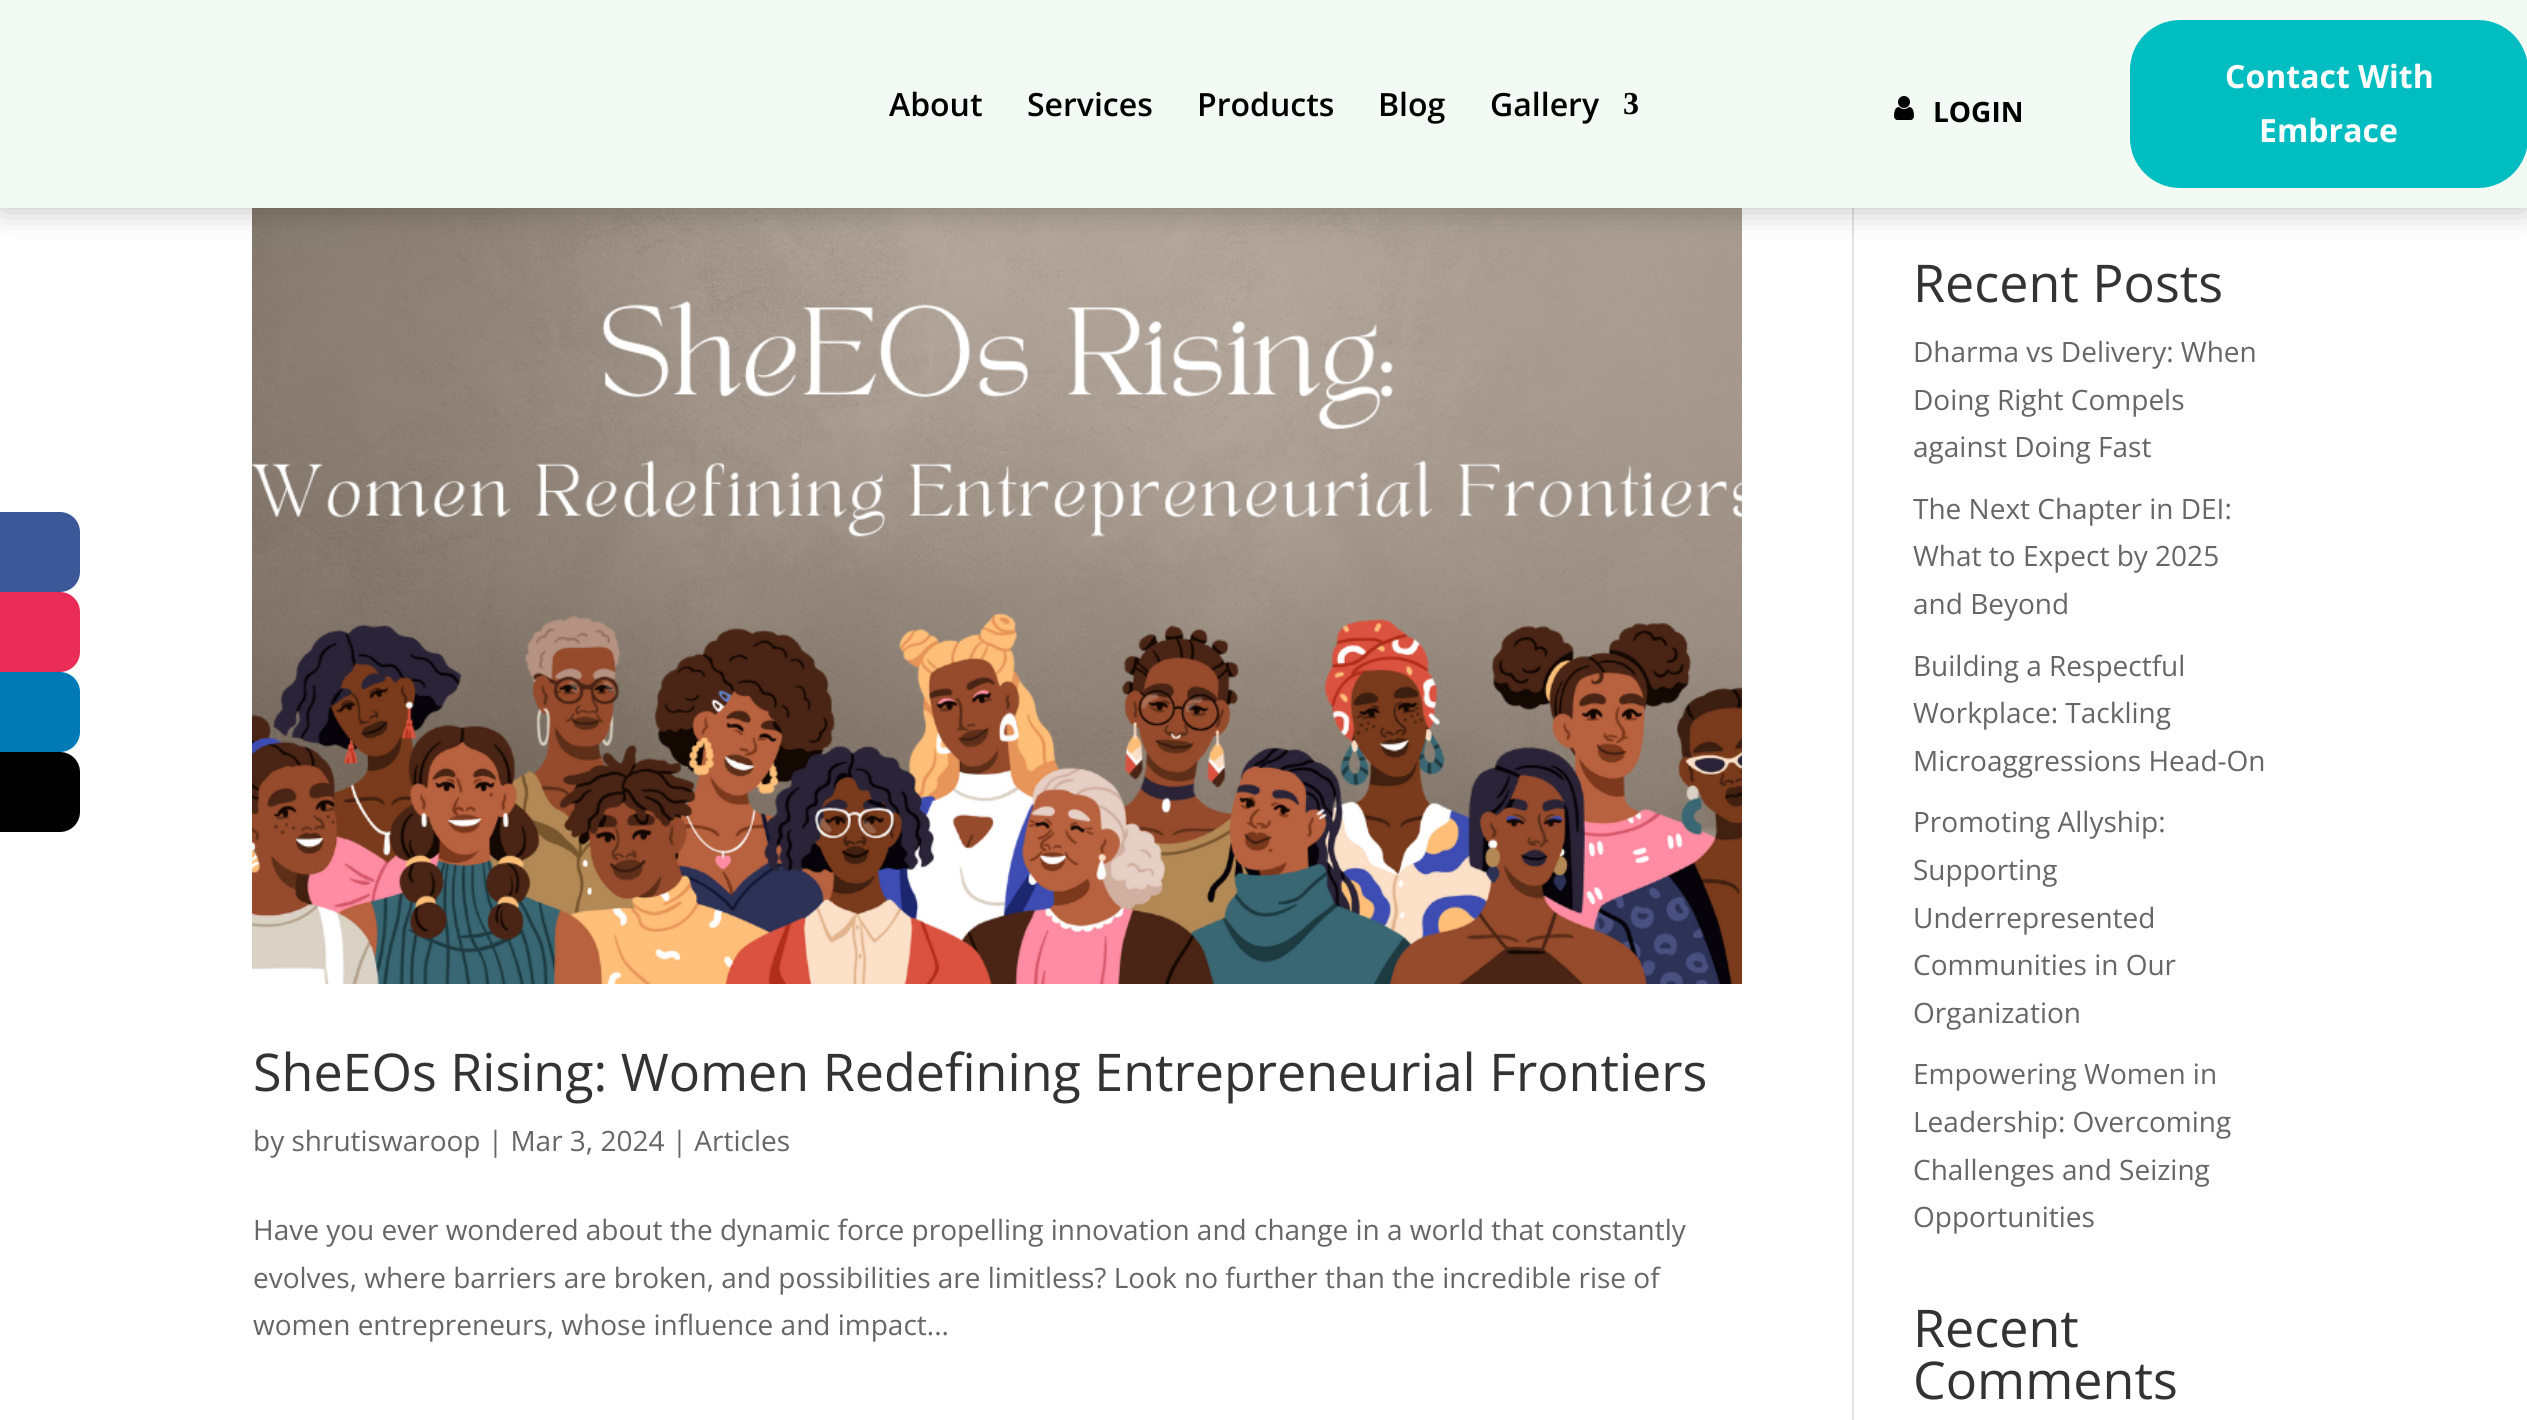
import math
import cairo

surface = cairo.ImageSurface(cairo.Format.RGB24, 2527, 1420)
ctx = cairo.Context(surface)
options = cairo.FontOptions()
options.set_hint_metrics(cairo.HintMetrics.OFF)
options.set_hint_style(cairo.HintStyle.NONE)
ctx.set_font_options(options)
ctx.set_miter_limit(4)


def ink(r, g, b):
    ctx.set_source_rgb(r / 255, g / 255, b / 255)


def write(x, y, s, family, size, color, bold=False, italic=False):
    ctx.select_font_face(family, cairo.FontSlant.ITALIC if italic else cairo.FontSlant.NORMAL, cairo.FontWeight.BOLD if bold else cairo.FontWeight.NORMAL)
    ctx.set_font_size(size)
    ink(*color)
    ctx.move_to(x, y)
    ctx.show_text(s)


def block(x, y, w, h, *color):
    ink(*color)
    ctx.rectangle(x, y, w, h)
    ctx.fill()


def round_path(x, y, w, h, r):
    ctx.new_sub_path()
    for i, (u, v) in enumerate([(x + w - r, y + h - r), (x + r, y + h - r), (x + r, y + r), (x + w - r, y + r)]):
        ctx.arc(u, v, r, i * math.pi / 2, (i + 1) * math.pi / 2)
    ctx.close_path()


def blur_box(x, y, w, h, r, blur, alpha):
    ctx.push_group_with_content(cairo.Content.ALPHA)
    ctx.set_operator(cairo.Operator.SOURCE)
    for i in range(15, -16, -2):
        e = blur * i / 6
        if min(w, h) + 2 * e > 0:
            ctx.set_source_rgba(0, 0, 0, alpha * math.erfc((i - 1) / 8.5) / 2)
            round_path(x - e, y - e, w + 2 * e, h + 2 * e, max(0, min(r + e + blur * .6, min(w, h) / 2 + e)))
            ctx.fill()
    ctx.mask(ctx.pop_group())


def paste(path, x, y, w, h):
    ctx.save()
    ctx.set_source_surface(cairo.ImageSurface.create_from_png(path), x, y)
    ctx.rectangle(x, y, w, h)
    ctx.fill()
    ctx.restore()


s1 = dict(family="Open Sans SemiBold", size=32, color=(0, 0, 0))
s2 = dict(family="Liberation Serif", size=32, color=(0, 0, 0), bold=True)
s3 = dict(family="Open Sans", size=28, color=(0, 0, 0), bold=True)
s4 = dict(family="Open Sans", size=32, color=(255, 255, 255), bold=True)
s5 = dict(family="Open Sans", size=52, color=(51, 51, 51))
s6 = dict(family="Open Sans", size=28, color=(102, 102, 102))

ink(255, 255, 255)
ctx.paint()
block(1852, 208, 2, 1212, 226, 226, 226)
paste("pic2.png", 252, 208, 1490, 776)
ink(0, 0, 0)
blur_box(2, 2, 2524, 204, 0, 17, 0.3)
block(0, 0, 2527, 208, 243, 249, 243)
write(889, 116, "About", **s1)
write(1027, 116, "Services", **s1)
write(1197, 116, "Products", **s1)
write(1378, 116, "Blog", **s1)
write(1490, 116, "Gallery", **s1)
write(1623, 114, "3", **s2)
paste("pic1.png", 1894, 96, 20, 24)
write(1933, 122, "LOGIN", **s3)
ink(0, 189, 193)
round_path(2130, 20, 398, 168, 50)
ctx.fill()
write(2225, 88, "Contact With", **s4)
write(2259, 142, "Embrace", **s4)
ink(59, 89, 152)
ctx.new_path()
ctx.move_to(0, 512)
ctx.line_to(60, 512)
ctx.curve_to(71, 512, 80, 521, 80, 532)
ctx.line_to(80, 572)
ctx.curve_to(80, 583, 71, 592, 60, 592)
ctx.line_to(0, 592)
ctx.close_path()
ctx.fill()
ink(234, 44, 89)
ctx.new_path()
ctx.move_to(0, 592)
ctx.line_to(60, 592)
ctx.curve_to(71, 592, 80, 601, 80, 612)
ctx.line_to(80, 652)
ctx.curve_to(80, 663, 71, 672, 60, 672)
ctx.line_to(0, 672)
ctx.close_path()
ctx.fill()
ink(0, 123, 182)
ctx.new_path()
ctx.move_to(0, 672)
ctx.line_to(60, 672)
ctx.curve_to(71, 672, 80, 681, 80, 692)
ctx.line_to(80, 732)
ctx.curve_to(80, 743, 71, 752, 60, 752)
ctx.line_to(0, 752)
ctx.close_path()
ctx.fill()
ink(0, 0, 0)
ctx.new_path()
ctx.move_to(0, 752)
ctx.line_to(60, 752)
ctx.curve_to(71, 752, 80, 761, 80, 772)
ctx.line_to(80, 812)
ctx.curve_to(80, 823, 71, 832, 60, 832)
ctx.line_to(0, 832)
ctx.close_path()
ctx.fill()
write(253, 1091, "SheEOs Rising: Women Redefining Entrepreneurial Frontiers", **s5)
write(253, 1151, "by shrutiswaroop | Mar 3, 2024 | Articles", **s6)
write(253, 1240, "Have you ever wondered about the dynamic force propelling innovation and change in a world that constantly", **s6)
write(253, 1288, "evolves, where barriers are broken, and possibilities are limitless? Look no further than the incredible rise of", **s6)
write(253, 1335, "women entrepreneurs, whose influence and impact...", **s6)
write(1913, 302, "Recent Posts", **s5)
write(1913, 362, "Dharma vs Delivery: When", **s6)
write(1913, 410, "Doing Right Compels", **s6)
write(1913, 457, "against Doing Fast", **s6)
write(1913, 519, "The Next Chapter in DEI:", **s6)
write(1913, 566, "What to Expect by 2025", **s6)
write(1913, 614, "and Beyond", **s6)
write(1913, 676, "Building a Respectful", **s6)
write(1913, 723, "Workplace: Tackling", **s6)
write(1913, 771, "Microaggressions Head-On", **s6)
write(1913, 832, "Promoting Allyship:", **s6)
write(1913, 880, "Supporting", **s6)
write(1913, 928, "Underrepresented", **s6)
write(1913, 975, "Communities in Our", **s6)
write(1913, 1023, "Organization", **s6)
write(1913, 1084, "Empowering Women in", **s6)
write(1913, 1132, "Leadership: Overcoming", **s6)
write(1913, 1180, "Challenges and Seizing", **s6)
write(1913, 1227, "Opportunities", **s6)
write(1913, 1347, "Recent", **s5)
write(1913, 1399, "Comments", **s5)
surface.write_to_png("screenshot.png")
